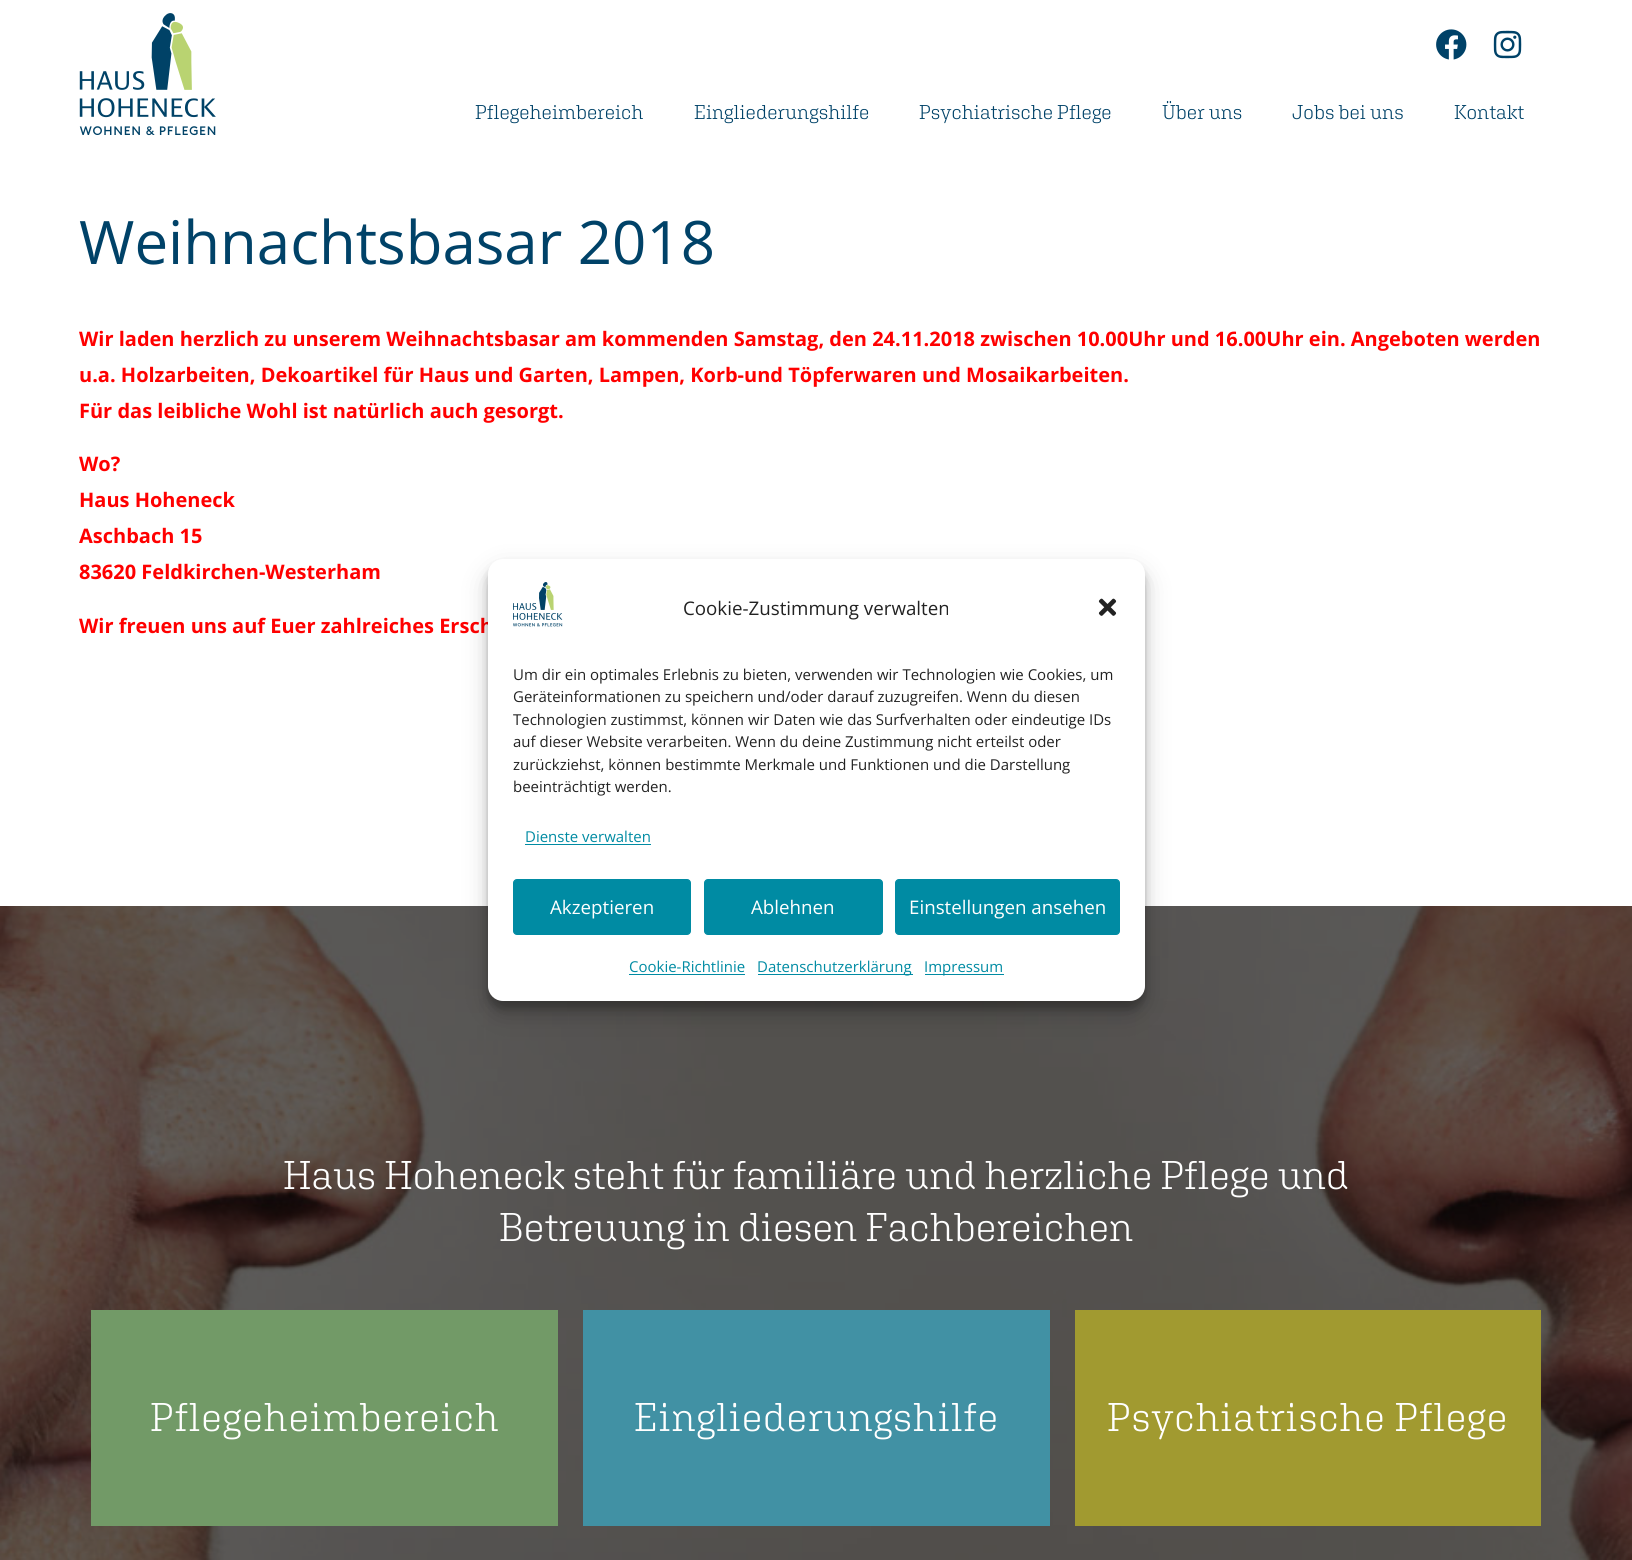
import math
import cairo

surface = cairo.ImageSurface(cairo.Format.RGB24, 1632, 1560)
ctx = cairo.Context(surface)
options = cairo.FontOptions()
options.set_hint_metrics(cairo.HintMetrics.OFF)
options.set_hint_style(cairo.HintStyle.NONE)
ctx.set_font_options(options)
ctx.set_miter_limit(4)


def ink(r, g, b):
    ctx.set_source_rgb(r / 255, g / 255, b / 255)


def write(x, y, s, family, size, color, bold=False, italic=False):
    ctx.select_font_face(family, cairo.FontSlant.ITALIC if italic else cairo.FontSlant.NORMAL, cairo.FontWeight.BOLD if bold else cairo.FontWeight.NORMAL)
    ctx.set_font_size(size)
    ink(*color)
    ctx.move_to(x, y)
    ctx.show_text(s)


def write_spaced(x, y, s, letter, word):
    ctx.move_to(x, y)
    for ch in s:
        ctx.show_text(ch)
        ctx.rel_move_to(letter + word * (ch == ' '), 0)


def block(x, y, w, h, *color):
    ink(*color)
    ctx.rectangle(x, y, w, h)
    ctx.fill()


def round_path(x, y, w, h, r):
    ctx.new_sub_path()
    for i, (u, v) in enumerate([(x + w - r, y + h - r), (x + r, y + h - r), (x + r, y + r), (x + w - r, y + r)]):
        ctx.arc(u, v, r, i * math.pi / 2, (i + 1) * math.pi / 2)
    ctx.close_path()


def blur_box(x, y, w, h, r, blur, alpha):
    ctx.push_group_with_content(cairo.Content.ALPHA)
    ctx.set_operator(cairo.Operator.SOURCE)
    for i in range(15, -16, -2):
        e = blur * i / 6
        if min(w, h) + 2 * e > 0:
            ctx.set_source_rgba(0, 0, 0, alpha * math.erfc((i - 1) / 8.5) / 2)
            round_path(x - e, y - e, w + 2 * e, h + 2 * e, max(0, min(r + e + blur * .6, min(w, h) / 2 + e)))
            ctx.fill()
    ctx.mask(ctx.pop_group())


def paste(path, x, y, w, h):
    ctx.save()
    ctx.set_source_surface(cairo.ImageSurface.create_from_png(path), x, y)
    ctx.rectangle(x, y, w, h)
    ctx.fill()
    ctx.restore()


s1 = dict(family="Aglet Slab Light", size=20, color=(0, 66, 104))
s2 = dict(family="Open Sans", size=60, color=(0, 66, 104))
s3 = dict(family="Open Sans", size=20, color=(255, 0, 0), bold=True)
s4 = dict(family="Open Sans", size=18.75, color=(34, 34, 34))
s5 = dict(family="Open Sans", size=15, color=(34, 34, 34))
s6 = dict(family="Open Sans", size=15, color=(0, 139, 163))
s7 = dict(family="Open Sans", size=18.75, color=(255, 255, 255))
s8 = dict(family="Aglet Slab Light", size=40, color=(255, 255, 255))

ink(255, 255, 255)
ctx.paint()
paste("pic1.png", 79, 13, 137, 123)
paste("pic2.png", 1436, 29, 31, 31)
paste("pic3.png", 1493, 30, 29, 29)
write(475, 119, "Pflegeheimbereich", **s1)
write(694, 119, "Eingliederungshilfe", **s1)
write(919, 119, "Psychiatrische Pflege", **s1)
write(1162, 119, "Über uns", **s1)
write(1292, 119, "Jobs bei uns", **s1)
write(1454, 119, "Kontakt", **s1)
write(79, 264, "Weihnachtsbasar 2018", **s2)
write(79, 346, "Wir laden herzlich zu unserem Weihnachtsbasar am kommenden Samstag, den 24.11.2018 zwischen 10.00Uhr und 16.00Uhr ein. Angeboten werden", **s3)
write(79, 382, "u.a. Holzarbeiten, Dekoartikel für Haus und Garten, Lampen, Korb-und Töpferwaren und Mosaikarbeiten.", **s3)
write(79, 418, "Für das leibliche Wohl ist natürlich auch gesorgt.", **s3)
write(79, 471, "Wo?", **s3)
write(79, 507, "Haus Hoheneck", **s3)
write(79, 543, "Aschbach 15", **s3)
write(79, 579, "83620 Feldkirchen-Westerham", **s3)
write(79, 633, "Wir freuen uns auf Euer zahlreiches Ersch", **s3)
paste("pic6.png", 0, 906, 1632, 654)
ink(0, 0, 0)
blur_box(488, 566, 657, 443, 15, 4, 0.23)
blur_box(488, 571, 657, 443, 15, 12.5, 0.19)
ink(255, 255, 255)
round_path(488, 559, 657, 442, 15)
ctx.fill()
paste("pic4.png", 513, 582, 50, 45)
write(683, 615, "Cookie-Zustimmung verwalten", **s4)
paste("pic5.png", 1098, 598, 19, 18)
write(513, 680, "Um dir ein optimales Erlebnis zu bieten, verwenden wir Technologien wie Cookies, um", **s5)
write(513, 702, "Geräteinformationen zu speichern und/oder darauf zuzugreifen. Wenn du diesen", **s5)
write(513, 725, "Technologien zustimmst, können wir Daten wie das Surfverhalten oder eindeutige IDs", **s5)
write(513, 747, "auf dieser Website verarbeiten. Wenn du deine Zustimmung nicht erteilst oder", **s5)
write(513, 770, "zurückziehst, können bestimmte Merkmale und Funktionen und die Darstellung", **s5)
write(513, 792, "beeinträchtigt werden.", **s5)
write(525, 842, "Dienste verwalten", **s6)
block(525, 844, 126, 1, 0, 139, 163)
round_path(513.5, 879.5, 177, 55, 3.5)
ctx.fill_preserve()
ctx.set_line_width(1)
ctx.stroke()
write(550, 914, "Akzeptieren", **s7)
ink(0, 139, 163)
round_path(704.5, 879.5, 178, 55, 3.5)
ctx.fill_preserve()
ctx.stroke()
write(751, 914, "Ablehnen", **s7)
ink(0, 139, 163)
round_path(895.5, 879.5, 224, 55, 3.5)
ctx.fill_preserve()
ctx.stroke()
write(909, 914, "Einstellungen ansehen", **s7)
write(629, 972, "Cookie-Richtlinie", **s6)
block(629, 974, 116, 1, 0, 139, 163)
block(758, 974, 155, 1, 0, 139, 163)
write(757, 972, "Datenschutzerklärung", **s6)
block(925, 974, 79, 1, 0, 139, 163)
write(924, 972, "Impressum", **s6)
write(283, 1189, "Haus Hoheneck steht für familiäre und herzliche Pflege und", **s8)
write(499, 1241, "Betreuung in diesen Fachbereichen", **s8)
block(91, 1310, 467, 216, 114, 154, 103)
ink(255, 255, 255)
write_spaced(150, 1431, "Pflegeheimbereich", 0.75, 0)
block(583, 1310, 467, 216, 65, 145, 164)
ink(255, 255, 255)
write_spaced(634, 1431, "Eingliederungshilfe", 0.75, 0)
block(1075, 1310, 466, 216, 161, 154, 48)
ink(255, 255, 255)
write_spaced(1107, 1431, "Psychiatrische Pflege", 0.75, 0)
surface.write_to_png("screenshot.png")
